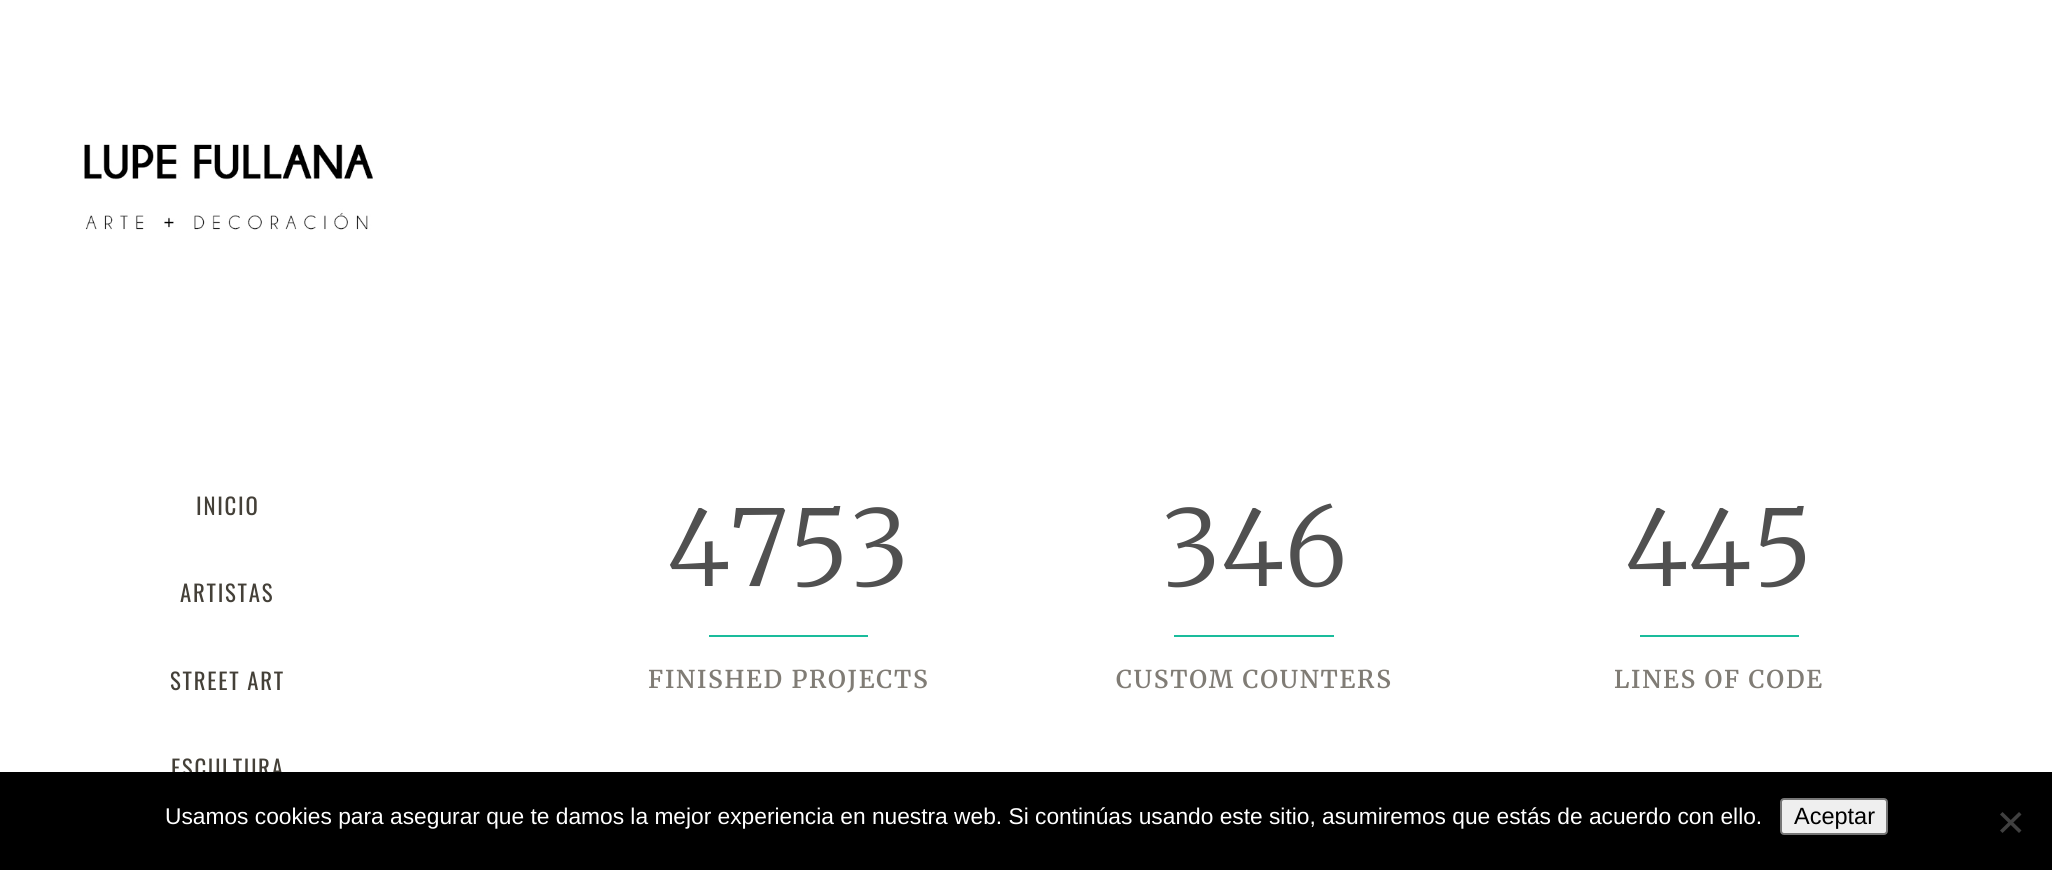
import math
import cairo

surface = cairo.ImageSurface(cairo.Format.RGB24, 2052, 870)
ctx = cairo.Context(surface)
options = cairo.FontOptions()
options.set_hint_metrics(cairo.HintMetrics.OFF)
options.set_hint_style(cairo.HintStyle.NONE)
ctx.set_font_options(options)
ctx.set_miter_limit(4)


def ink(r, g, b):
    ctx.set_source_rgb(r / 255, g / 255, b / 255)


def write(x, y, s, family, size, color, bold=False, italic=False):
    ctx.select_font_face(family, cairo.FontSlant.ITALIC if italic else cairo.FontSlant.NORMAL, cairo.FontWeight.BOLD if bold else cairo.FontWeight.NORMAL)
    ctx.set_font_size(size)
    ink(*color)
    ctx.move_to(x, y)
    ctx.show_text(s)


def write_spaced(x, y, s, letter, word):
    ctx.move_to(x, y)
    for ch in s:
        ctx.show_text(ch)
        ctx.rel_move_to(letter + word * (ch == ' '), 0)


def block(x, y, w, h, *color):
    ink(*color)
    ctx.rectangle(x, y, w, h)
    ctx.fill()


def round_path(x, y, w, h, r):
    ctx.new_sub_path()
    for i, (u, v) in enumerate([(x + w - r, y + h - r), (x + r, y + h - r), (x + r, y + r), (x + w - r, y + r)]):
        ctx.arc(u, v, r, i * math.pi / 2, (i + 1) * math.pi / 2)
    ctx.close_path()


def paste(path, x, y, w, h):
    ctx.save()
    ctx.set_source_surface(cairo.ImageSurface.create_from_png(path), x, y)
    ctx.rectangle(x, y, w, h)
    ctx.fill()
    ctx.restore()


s1 = dict(family="Merriweather Light", size=105, color=(80, 80, 80))
s2 = dict(family="Liberation Sans", size=22.75, color=(255, 255, 255))
s3 = dict(family="Liberation Sans", size=23.5, color=(0, 0, 0))

ink(255, 255, 255)
ctx.paint()
paste("pic1.png", 84, 144, 289, 86)
ctx.select_font_face("Oswald")
ctx.set_font_size(22.75)
ink(68, 64, 56)
write_spaced(196, 515, "INICIO", 1.75, 0)
write_spaced(180, 602, "ARTISTAS", 1.75, 0)
write_spaced(170, 690, "STREET ART", 1.75, 0)
write_spaced(171, 777, "ESCULTURA", 1.75, 0)
write(667, 586, "4753", **s1)
block(709, 635, 159, 2, 26, 188, 156)
ctx.select_font_face("Merriweather SemiBold")
ctx.set_font_size(24.5)
ink(128, 124, 117)
write_spaced(648, 688, "FINISHED PROJECTS", 1.75, 0)
write(1161, 586, "346", **s1)
block(1174, 635, 160, 2, 26, 188, 156)
ctx.select_font_face("Merriweather SemiBold")
ctx.set_font_size(24.5)
ink(128, 124, 117)
write_spaced(1116, 688, "CUSTOM COUNTERS", 1.75, 0)
write(1625, 586, "445", **s1)
block(1640, 635, 159, 2, 26, 188, 156)
ctx.select_font_face("Merriweather SemiBold")
ctx.set_font_size(24.5)
ink(128, 124, 117)
write_spaced(1614, 688, "LINES OF CODE", 1.75, 0)
block(0, 772, 2052, 98, 0, 0, 0)
write(165, 824, "Usamos cookies para asegurar que te damos la mejor experiencia en nuestra web. Si continúas usando este sitio, asumiremos que estás de acuerdo con ello.", **s2)
ink(239, 239, 239)
round_path(1781, 799, 106, 35, 3)
ctx.fill_preserve()
ink(118, 118, 118)
ctx.stroke()
write(1794, 824, "Aceptar", **s3)
ink(64, 64, 64)
ctx.new_path()
ctx.move_to(2019, 812)
ctx.line_to(2021.5, 814.5)
ctx.line_to(2002.5, 833)
ctx.line_to(2000, 830.5)
ctx.close_path()
ctx.fill()
ctx.new_path()
ctx.move_to(2000, 814.5)
ctx.line_to(2002.5, 812)
ctx.line_to(2021.5, 830.5)
ctx.line_to(2019, 833)
ctx.close_path()
ctx.fill()
surface.write_to_png("screenshot.png")
